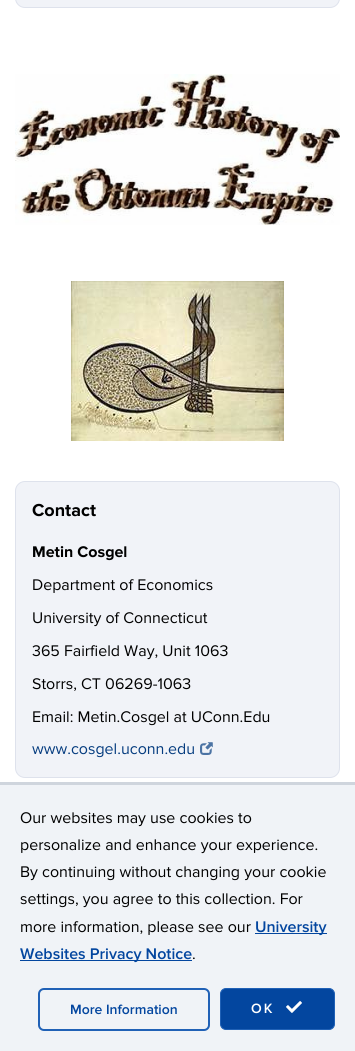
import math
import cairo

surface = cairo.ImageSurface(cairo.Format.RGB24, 355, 1051)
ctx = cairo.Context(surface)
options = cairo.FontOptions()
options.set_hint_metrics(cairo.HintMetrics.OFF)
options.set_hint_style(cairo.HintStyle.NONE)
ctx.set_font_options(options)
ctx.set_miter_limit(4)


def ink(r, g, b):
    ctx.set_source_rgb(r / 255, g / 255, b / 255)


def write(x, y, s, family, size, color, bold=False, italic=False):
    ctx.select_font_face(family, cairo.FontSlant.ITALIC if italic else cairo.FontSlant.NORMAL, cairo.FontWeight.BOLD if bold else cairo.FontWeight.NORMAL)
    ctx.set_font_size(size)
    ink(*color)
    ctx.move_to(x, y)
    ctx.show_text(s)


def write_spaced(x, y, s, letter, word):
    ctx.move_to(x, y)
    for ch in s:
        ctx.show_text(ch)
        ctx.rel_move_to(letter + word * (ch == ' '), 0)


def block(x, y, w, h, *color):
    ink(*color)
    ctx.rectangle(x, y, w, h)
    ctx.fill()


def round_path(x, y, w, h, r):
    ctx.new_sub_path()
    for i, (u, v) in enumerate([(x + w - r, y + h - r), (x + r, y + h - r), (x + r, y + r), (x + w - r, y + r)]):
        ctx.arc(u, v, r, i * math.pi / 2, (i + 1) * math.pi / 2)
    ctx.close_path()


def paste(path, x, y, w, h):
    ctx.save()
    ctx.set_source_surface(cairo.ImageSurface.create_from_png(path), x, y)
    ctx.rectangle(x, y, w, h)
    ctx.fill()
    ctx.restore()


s1 = dict(family="Proxima Nova", size=18, color=(0, 0, 0), bold=True)
s2 = dict(family="Proxima Nova", size=16, color=(0, 0, 0), bold=True)
s3 = dict(family="Proxima Nova", size=16, color=(0, 0, 0))
s4 = dict(family="Proxima Nova", size=16, color=(5, 60, 127))
s5 = dict(family="Proxima Nova SemiBold", size=16, color=(3, 70, 159))
s6 = dict(family="Proxima Nova SemiBold", size=14, color=(3, 70, 159))

ink(255, 255, 255)
ctx.paint()
ink(241, 243, 248)
round_path(15.5, -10.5, 324, 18, 9.5)
ctx.fill_preserve()
ink(222, 226, 236)
ctx.set_line_width(1)
ctx.stroke()
paste("pic1.png", 15, 74, 325, 151)
paste("pic2.png", 71, 281, 213, 160)
ink(241, 243, 248)
round_path(15.5, 481.5, 324, 296, 9.5)
ctx.fill_preserve()
ink(222, 226, 236)
ctx.stroke()
write(32, 516, "Contact", **s1)
write(32, 557, "Metin Cosgel", **s2)
write(32, 590, "Department of Economics", **s3)
write(32, 623, "University of Connecticut", **s3)
write(32, 656, "365 Fairfield Way, Unit 1063", **s3)
write(32, 689, "Storrs, CT 06269-1063", **s3)
write(32, 722, "Email: Metin.Cosgel at UConn.Edu", **s3)
write(32, 754, "www.cosgel.uconn.edu", **s4)
paste("pic3.png", 200, 742, 13, 13)
block(0, 785, 355, 266, 240, 243, 247)
block(0, 782, 355, 3, 207, 213, 221)
write(20, 823, "Our websites may use cookies to", **s3)
write(20, 850, "personalize and enhance your experience.", **s3)
write(20, 877, "By continuing without changing your cookie", **s3)
write(20, 904, "settings, you agree to this collection. For", **s3)
write(20, 932, "more information, please see our", **s3)
block(255, 933, 72, 1, 3, 70, 159)
write(255, 932, "University", **s5)
block(20, 960, 172, 1, 3, 70, 159)
write(20, 959, "Websites Privacy Notice", **s5)
write(192, 959, ".", **s3)
round_path(39, 989, 170, 41, 5)
ink(32, 97, 182)
ctx.set_line_width(2)
ctx.stroke()
write(70, 1014, "More Information", **s6)
round_path(220.5, 988.5, 114, 41, 5.5)
ctx.fill_preserve()
ink(32, 97, 182)
ctx.set_line_width(1)
ctx.stroke()
ink(255, 255, 255)
write_spaced(251, 1013, "OK", 2, 0)
paste("pic4.png", 286, 1001, 16, 12)
surface.write_to_png("screenshot.png")
